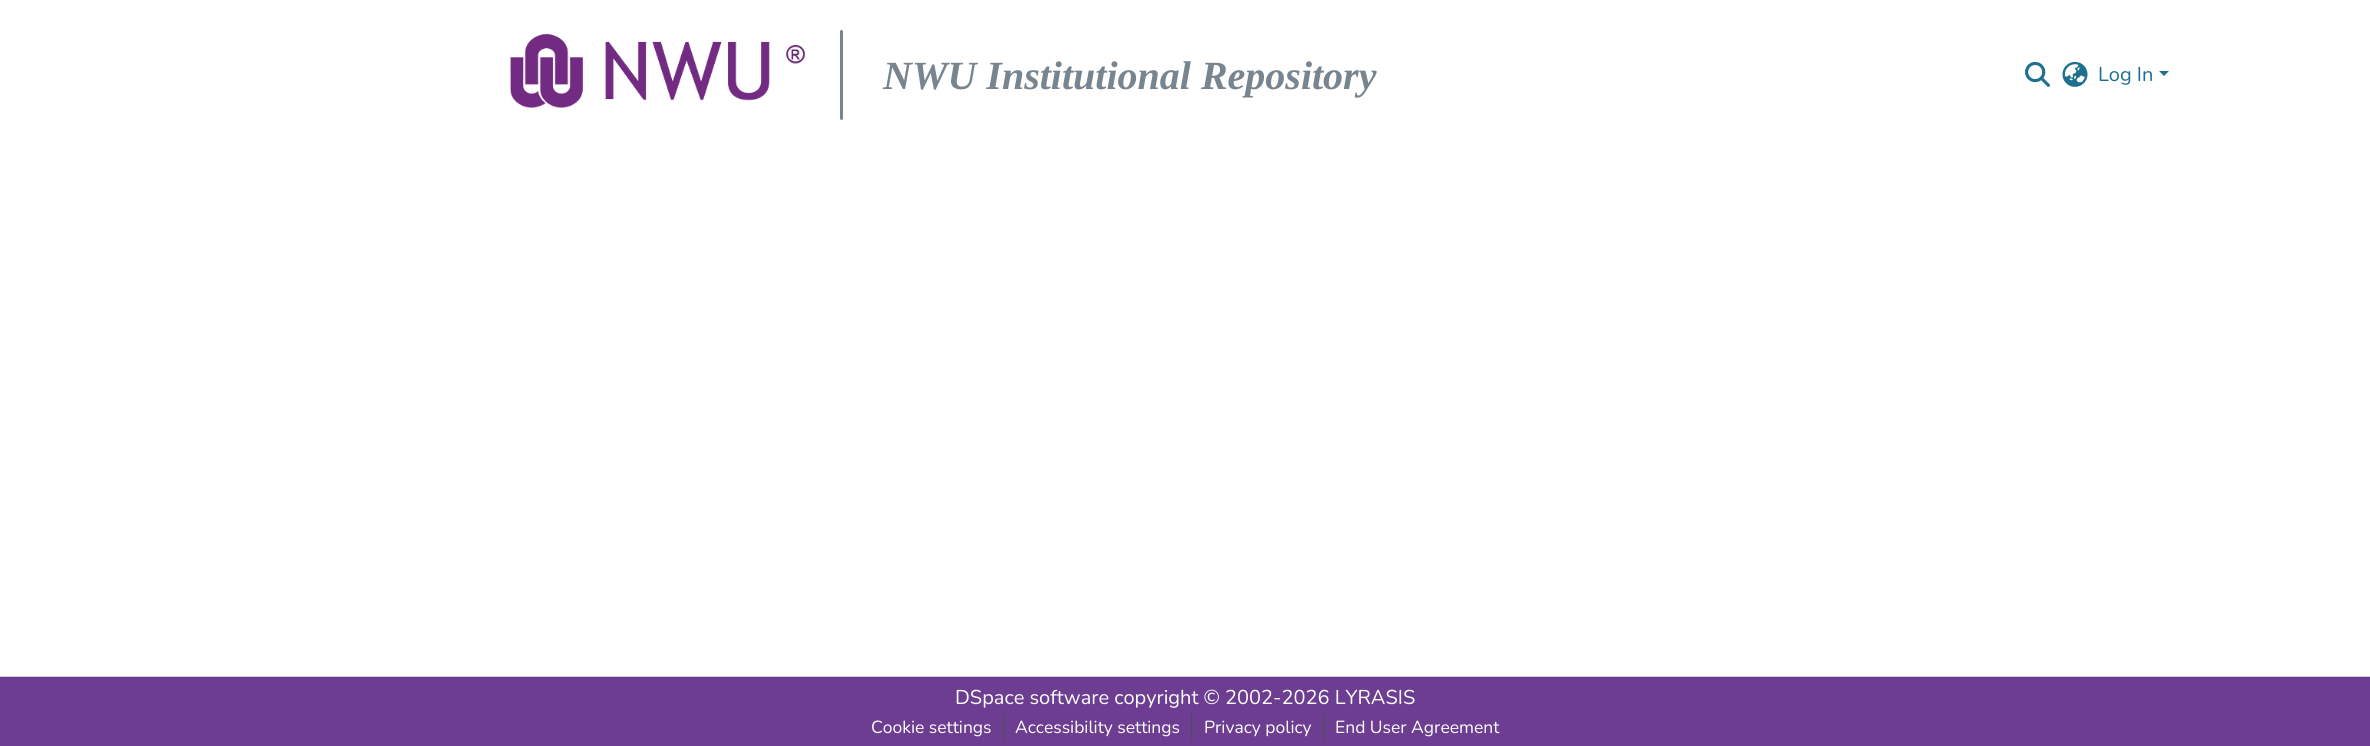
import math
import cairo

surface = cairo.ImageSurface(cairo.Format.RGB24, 2370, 746)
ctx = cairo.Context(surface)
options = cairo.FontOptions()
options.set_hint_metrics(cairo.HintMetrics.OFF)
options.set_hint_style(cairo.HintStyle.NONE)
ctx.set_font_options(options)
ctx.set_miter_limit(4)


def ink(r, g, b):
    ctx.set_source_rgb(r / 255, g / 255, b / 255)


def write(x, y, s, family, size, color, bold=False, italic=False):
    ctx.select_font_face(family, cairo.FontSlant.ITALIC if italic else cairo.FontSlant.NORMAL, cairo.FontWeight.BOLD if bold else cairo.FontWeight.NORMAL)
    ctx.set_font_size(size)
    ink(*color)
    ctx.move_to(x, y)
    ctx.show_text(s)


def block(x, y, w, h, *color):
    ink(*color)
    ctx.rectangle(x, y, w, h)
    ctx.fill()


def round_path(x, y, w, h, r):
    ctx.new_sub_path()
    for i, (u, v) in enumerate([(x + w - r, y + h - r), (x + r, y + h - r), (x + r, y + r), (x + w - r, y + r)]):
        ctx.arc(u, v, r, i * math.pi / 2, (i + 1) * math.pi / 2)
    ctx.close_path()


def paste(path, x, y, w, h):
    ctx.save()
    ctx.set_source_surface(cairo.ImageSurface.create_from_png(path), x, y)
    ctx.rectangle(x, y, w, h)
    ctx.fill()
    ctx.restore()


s1 = dict(family="Liberation Serif", size=40, color=(120, 132, 142), bold=True, italic=True)
s2 = dict(family="Nunito", size=20, color=(30, 111, 144))
s3 = dict(family="Nunito", size=20, color=(255, 255, 255))
s4 = dict(family="Nunito", size=17.5, color=(255, 255, 255))

ink(255, 255, 255)
ctx.paint()
paste("pic1.png", 510, 33, 296, 75)
ink(120, 132, 142)
round_path(840, 30, 3, 90, 1.5)
ctx.fill()
write(883, 89, "NWU Institutional Repository", **s1)
paste("pic2.png", 2025, 61, 25, 26)
paste("pic3.png", 2062, 61, 26, 26)
write(2098, 81, "Log In", **s2)
ctx.new_path()
ctx.move_to(2159, 71)
ctx.line_to(2169, 71)
ctx.line_to(2164, 76)
ctx.close_path()
ctx.fill()
block(0, 677, 2370, 69, 108, 61, 145)
block(0, 676, 2370, 1, 206, 212, 218)
write(955, 704, "DSpace software copyright © 2002-2026 LYRASIS", **s3)
write(871, 733, "Cookie settings", **s4)
block(1003, 713, 1, 28, 73, 80, 87)
write(1015, 733, "Accessibility settings", **s4)
block(1191, 713, 1, 28, 73, 80, 87)
write(1204, 733, "Privacy policy", **s4)
block(1323, 713, 1, 28, 73, 80, 87)
write(1335, 733, "End User Agreement", **s4)
surface.write_to_png("screenshot.png")
